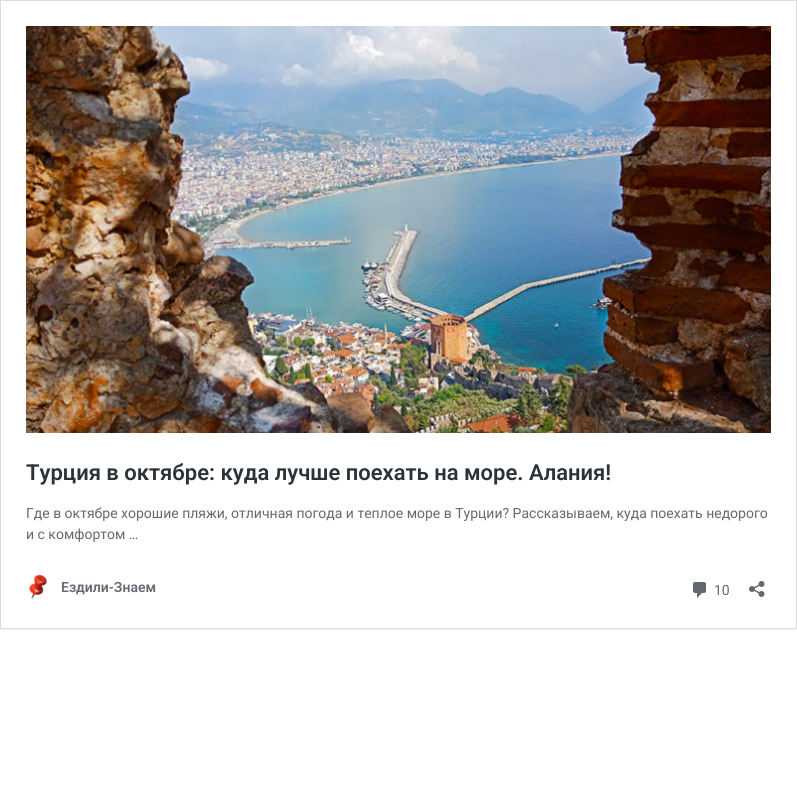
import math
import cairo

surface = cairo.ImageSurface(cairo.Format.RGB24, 797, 785)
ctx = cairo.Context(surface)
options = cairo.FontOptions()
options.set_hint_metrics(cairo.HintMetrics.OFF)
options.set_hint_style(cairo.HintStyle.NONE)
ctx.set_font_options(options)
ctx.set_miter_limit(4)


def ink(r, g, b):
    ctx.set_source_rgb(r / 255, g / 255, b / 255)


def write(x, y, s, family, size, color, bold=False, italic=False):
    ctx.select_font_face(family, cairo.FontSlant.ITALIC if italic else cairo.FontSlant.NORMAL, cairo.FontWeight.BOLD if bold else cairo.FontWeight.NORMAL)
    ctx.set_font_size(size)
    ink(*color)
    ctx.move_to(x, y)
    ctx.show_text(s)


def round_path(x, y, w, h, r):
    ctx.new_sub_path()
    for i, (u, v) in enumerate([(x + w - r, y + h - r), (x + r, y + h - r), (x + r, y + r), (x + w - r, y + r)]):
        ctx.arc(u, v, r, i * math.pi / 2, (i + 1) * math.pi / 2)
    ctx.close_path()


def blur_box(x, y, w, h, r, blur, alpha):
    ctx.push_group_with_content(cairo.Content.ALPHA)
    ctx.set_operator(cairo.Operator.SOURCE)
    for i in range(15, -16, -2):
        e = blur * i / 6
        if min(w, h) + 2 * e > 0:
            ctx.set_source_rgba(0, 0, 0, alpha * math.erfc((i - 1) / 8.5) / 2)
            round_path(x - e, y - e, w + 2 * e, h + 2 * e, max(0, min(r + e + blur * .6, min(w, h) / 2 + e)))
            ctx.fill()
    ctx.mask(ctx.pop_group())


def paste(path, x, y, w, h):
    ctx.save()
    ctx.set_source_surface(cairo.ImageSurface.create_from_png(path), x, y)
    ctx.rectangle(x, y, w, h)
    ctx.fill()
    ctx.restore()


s1 = dict(family="Roboto SemiBold", size=22, color=(44, 51, 56))
s2 = dict(family="Roboto", size=14, color=(100, 105, 112))
s3 = dict(family="Roboto SemiBold", size=14, color=(100, 105, 112))

ink(255, 255, 255)
ctx.paint()
ctx.save()
ctx.rectangle(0, 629, 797, 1)
ctx.clip()
ink(0, 0, 0)
blur_box(0, 1, 797, 629, 0, 0.5, 0.05)
ctx.restore()
ctx.rectangle(0.5, 0.5, 796, 628)
ink(220, 220, 222)
ctx.set_line_width(1)
ctx.stroke()
paste("pic1.png", 26, 26, 745, 407)
write(26, 480, "Турция в октябре: куда лучше поехать на море. Алания!", **s1)
write(26, 518, "Где в октябре хорошие пляжи, отличная погода и теплое море в Турции? Рассказываем, куда поехать недорого", **s2)
write(26, 539, "и с комфортом …", **s2)
paste("pic2.png", 29, 574, 18, 26)
write(61, 592, "Ездили-Знаем", **s3)
paste("pic3.png", 693, 582, 13, 16)
write(714, 595, "10", **s2)
paste("pic4.png", 749, 581, 16, 16)
surface.write_to_png("screenshot.png")
